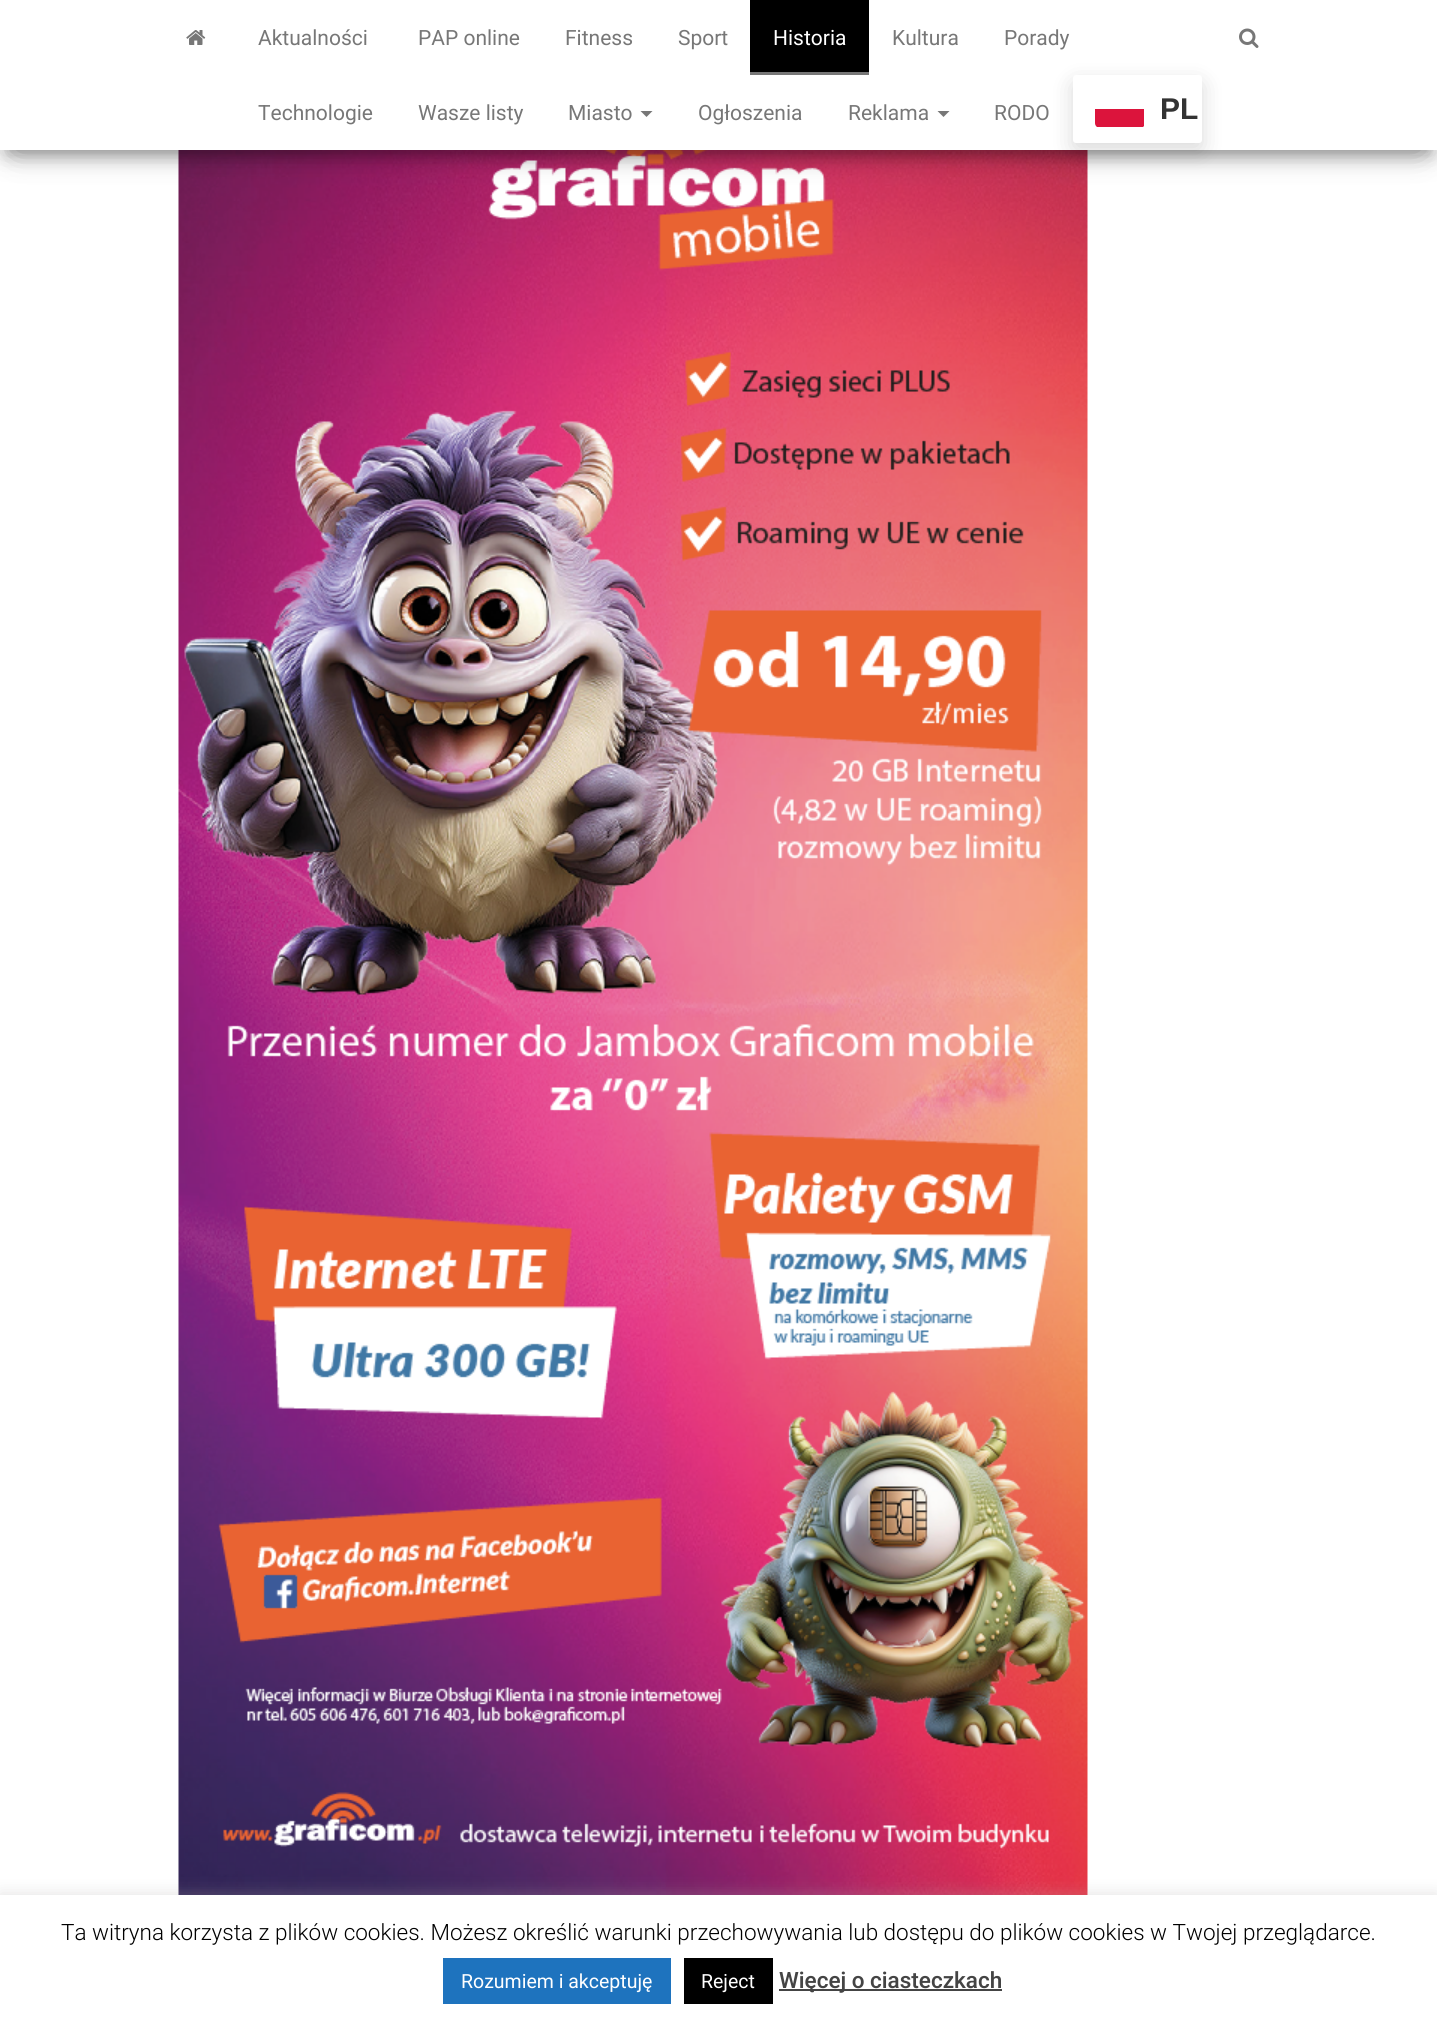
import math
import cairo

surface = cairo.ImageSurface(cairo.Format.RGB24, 1437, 2022)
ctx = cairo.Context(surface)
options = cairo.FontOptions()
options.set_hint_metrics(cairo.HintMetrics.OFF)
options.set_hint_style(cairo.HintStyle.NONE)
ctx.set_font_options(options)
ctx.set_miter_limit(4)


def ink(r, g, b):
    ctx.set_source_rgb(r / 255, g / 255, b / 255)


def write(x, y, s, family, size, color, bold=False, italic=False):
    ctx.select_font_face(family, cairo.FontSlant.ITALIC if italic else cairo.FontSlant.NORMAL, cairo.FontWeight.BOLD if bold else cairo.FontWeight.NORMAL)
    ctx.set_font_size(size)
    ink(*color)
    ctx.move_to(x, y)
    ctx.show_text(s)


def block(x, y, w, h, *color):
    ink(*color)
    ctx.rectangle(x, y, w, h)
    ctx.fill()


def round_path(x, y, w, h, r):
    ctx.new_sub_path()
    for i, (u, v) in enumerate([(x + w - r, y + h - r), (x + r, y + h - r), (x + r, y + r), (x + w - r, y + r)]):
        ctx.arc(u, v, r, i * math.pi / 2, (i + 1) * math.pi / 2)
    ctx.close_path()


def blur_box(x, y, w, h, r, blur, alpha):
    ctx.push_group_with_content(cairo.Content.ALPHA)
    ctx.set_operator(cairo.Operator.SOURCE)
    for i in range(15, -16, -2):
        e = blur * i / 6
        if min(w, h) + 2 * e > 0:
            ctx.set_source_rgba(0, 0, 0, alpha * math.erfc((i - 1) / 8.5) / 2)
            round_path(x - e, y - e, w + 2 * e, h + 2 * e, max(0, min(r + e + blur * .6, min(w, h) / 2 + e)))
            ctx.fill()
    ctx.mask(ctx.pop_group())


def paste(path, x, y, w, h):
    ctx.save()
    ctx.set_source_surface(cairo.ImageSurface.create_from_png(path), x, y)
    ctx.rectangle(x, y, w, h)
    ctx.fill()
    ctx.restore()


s1 = dict(family="Roboto", size=21, color=(119, 119, 119))
s2 = dict(family="Roboto", size=21, color=(255, 255, 255))
s3 = dict(family="Liberation Sans", size=30, color=(51, 51, 51), bold=True)
s4 = dict(family="Roboto Light", size=22.5, color=(0, 0, 0))
s5 = dict(family="Roboto", size=19.5, color=(255, 255, 255))
s6 = dict(family="Roboto Medium", size=22.5, color=(68, 68, 68))

ink(255, 255, 255)
ctx.paint()
paste("pic3.png", 178, 150, 910, 1745)
ink(0, 0, 0)
blur_box(8, 20, 1422, 135, 0, 7.5, 0.2)
blur_box(0, 5, 1437, 150, 0, 15, 0.12)
blur_box(18, 33, 1401, 114, 0, 15, 0.42)
block(0, 0, 1437, 150, 255, 255, 255)
paste("pic1.png", 186, 30, 20, 15)
write(258, 45, "Aktualności", **s1)
write(418, 45, "PAP online", **s1)
write(565, 45, "Fitness", **s1)
write(678, 45, "Sport", **s1)
block(750, 0, 119, 72, 0, 0, 0)
write(773, 45, "Historia", **s2)
block(750, 72, 119, 3, 119, 119, 119)
write(892, 45, "Kultura", **s1)
write(1004, 45, "Porady", **s1)
write(258, 120, "Technologie", **s1)
write(418, 120, "Wasze listy", **s1)
write(568, 120, "Miasto", **s1)
ctx.new_path()
ctx.move_to(640.5, 111)
ctx.line_to(652.5, 111)
ctx.line_to(646.5, 117)
ctx.close_path()
ctx.fill()
write(698, 120, "Ogłoszenia", **s1)
write(848, 120, "Reklama", **s1)
ctx.new_path()
ctx.move_to(937.5, 111)
ctx.line_to(949.5, 111)
ctx.line_to(943.5, 117)
ctx.close_path()
ctx.fill()
write(994, 120, "RODO", **s1)
ink(0, 0, 0)
blur_box(1073, 83, 129, 67, 3, 11, 0.15)
ink(255, 255, 255)
round_path(1073, 75, 129, 68, 3)
ctx.fill()
ctx.save()
round_path(1095, 90, 50, 38, 5)
ctx.clip()
block(1095, 109, 49, 18, 220, 20, 60)
ctx.restore()
write(1160, 119, "PL", **s3)
paste("pic2.png", 1239, 28, 20, 20)
ink(172, 171, 171)
blur_box(0, 1893, 1437, 128, 0, 7.5, 0.3)
block(0, 1895, 1437, 127, 255, 255, 255)
write(61, 1940, "Ta witryna korzysta z plików cookies. Możesz określić warunki przechowywania lub dostępu do plików cookies w Twojej przeglądarce.", **s4)
block(443, 1958, 228, 46, 30, 115, 190)
write(461, 1988, "Rozumiem i akceptuję", **s5)
block(684, 1958, 89, 46, 0, 0, 0)
write(701, 1988, "Reject", **s5)
block(779, 1989, 223, 2, 68, 68, 68)
write(779, 1988, "Więcej o ciasteczkach", **s6)
surface.write_to_png("screenshot.png")
